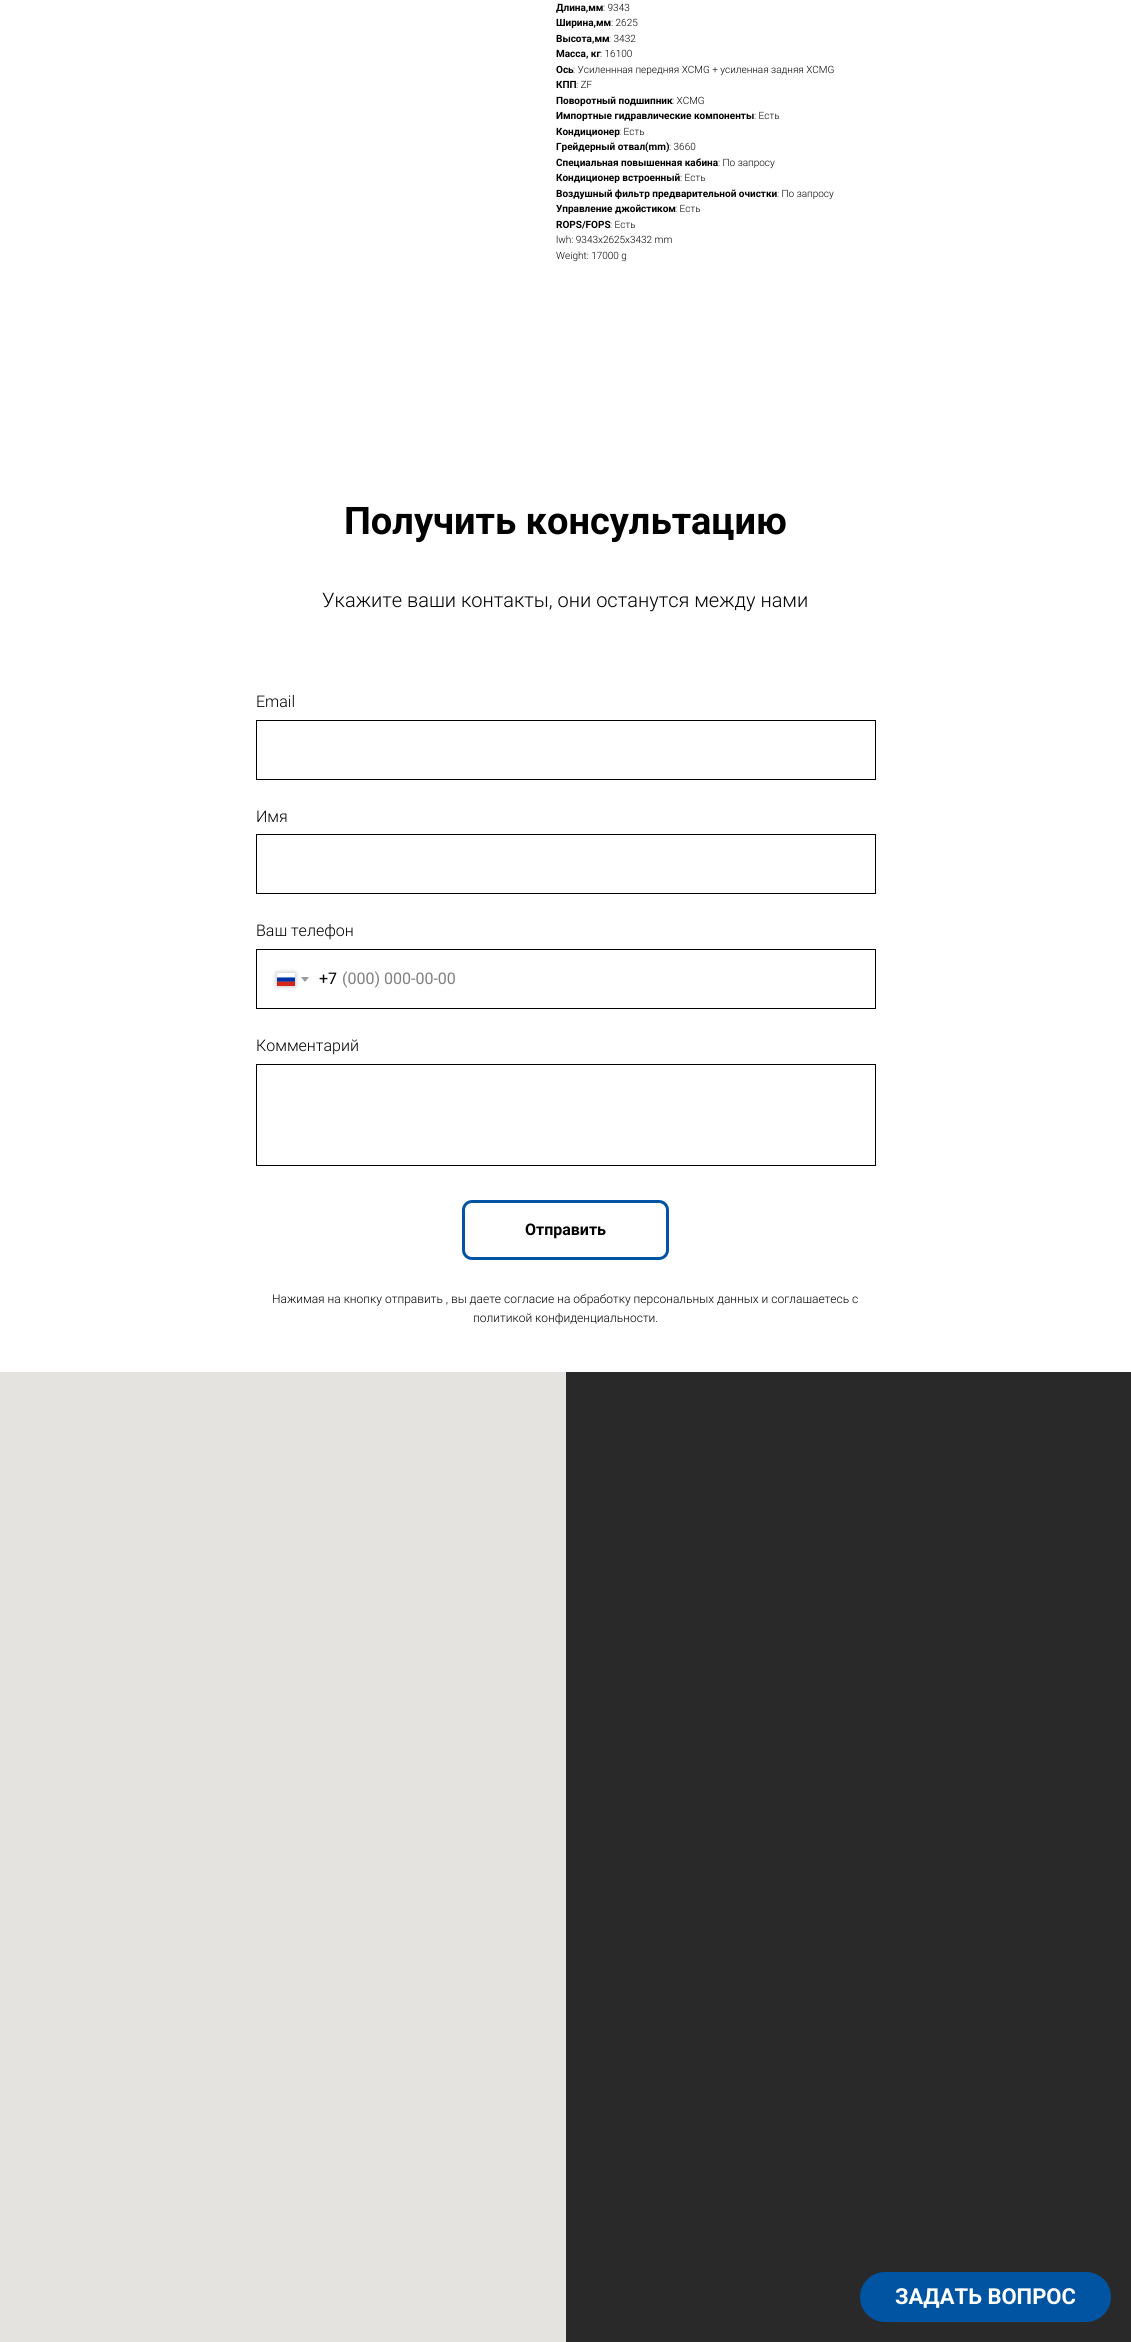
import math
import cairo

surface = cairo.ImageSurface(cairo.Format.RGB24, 1131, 2342)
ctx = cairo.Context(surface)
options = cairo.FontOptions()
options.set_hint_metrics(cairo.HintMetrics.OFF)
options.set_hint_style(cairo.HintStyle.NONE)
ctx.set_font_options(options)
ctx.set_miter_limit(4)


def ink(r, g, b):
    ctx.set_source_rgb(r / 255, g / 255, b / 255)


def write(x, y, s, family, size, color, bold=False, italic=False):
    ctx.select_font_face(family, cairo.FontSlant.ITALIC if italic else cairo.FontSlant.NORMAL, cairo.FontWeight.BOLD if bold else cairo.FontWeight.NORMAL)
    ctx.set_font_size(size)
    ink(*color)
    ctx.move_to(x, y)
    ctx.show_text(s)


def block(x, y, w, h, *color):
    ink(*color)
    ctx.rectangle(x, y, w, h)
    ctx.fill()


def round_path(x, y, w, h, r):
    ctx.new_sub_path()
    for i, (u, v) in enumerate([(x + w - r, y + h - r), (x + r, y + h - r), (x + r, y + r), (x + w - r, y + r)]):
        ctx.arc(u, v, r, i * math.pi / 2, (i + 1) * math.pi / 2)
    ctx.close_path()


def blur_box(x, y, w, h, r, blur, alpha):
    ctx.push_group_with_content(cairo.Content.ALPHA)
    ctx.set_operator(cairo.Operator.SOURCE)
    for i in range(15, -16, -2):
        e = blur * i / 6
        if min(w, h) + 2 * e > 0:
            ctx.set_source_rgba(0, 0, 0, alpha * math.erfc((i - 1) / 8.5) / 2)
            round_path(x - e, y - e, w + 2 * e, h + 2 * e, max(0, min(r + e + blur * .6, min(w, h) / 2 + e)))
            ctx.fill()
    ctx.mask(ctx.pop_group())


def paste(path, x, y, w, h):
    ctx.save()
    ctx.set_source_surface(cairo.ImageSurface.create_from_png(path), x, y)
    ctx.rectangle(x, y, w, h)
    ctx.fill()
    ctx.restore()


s1 = dict(family="Roboto", size=10, color=(0, 0, 0), bold=True)
s2 = dict(family="Roboto Light", size=10, color=(0, 0, 0))
s3 = dict(family="Roboto", size=38, color=(0, 0, 0), bold=True)
s4 = dict(family="Roboto Light", size=20, color=(0, 0, 0))
s5 = dict(family="Roboto Light", size=16, color=(0, 0, 0))
s6 = dict(family="Roboto", size=16, color=(0, 0, 0))
s7 = dict(family="Roboto", size=16, color=(128, 128, 128))
s8 = dict(family="Roboto", size=16, color=(0, 0, 0), bold=True)
s9 = dict(family="Roboto Light", size=12, color=(0, 0, 0))
s10 = dict(family="Roboto", size=22, color=(255, 255, 255), bold=True)

ink(255, 255, 255)
ctx.paint()
write(556, 11, "Длина,мм", **s1)
write(603, 11, ": 9343", **s2)
write(556, 26, "Ширина,мм", **s1)
write(611, 26, ": 2625", **s2)
write(556, 42, "Высота,мм", **s1)
write(609, 42, ": 3432", **s2)
write(556, 57, "Масса, кг", **s1)
write(600, 57, ": 16100", **s2)
write(556, 73, "Ось", **s1)
write(573, 73, ": Усиленнная передняя XCMG + усиленная задняя XCMG", **s2)
write(556, 88, "КПП", **s1)
write(576, 88, ": ZF", **s2)
write(556, 104, "Поворотный подшипник", **s1)
write(672, 104, ": XCMG", **s2)
write(556, 119, "Импортные гидравлические компоненты", **s1)
write(754, 119, ": Есть", **s2)
write(556, 135, "Кондиционер", **s1)
write(619, 135, ": Есть", **s2)
write(556, 150, "Грейдерный отвал(mm)", **s1)
write(669, 150, ": 3660", **s2)
write(556, 166, "Специальная повышенная кабина", **s1)
write(718, 166, ": По запросу", **s2)
write(556, 181, "Кондиционер встроенный", **s1)
write(680, 181, ": Есть", **s2)
write(556, 197, "Воздушный фильтр предварительной очистки", **s1)
write(777, 197, ": По запросу", **s2)
write(556, 212, "Управление джойстиком", **s1)
write(675, 212, ": Есть", **s2)
write(556, 228, "ROPS/FOPS", **s1)
write(610, 228, ": Есть", **s2)
write(556, 243, "lwh: 9343x2625x3432 mm", **s2)
write(556, 259, "Weight: 17000 g", **s2)
write(344, 534, "Получить консультацию", **s3)
write(322, 607, "Укажите ваши контакты, они останутся между нами", **s4)
write(256, 707, "Email", **s5)
ctx.rectangle(256.5, 720.5, 619, 59)
ctx.set_line_width(1)
ctx.stroke()
write(256, 822, "Имя", **s5)
ctx.rectangle(256.5, 834.5, 619, 59)
ctx.stroke()
write(256, 936, "Ваш телефон", **s5)
ctx.rectangle(256.5, 949.5, 619, 59)
ctx.stroke()
ink(0, 0, 0)
blur_box(277, 973, 18, 13, 0, 2.5, 0.3)
paste("pic1.png", 277, 973, 18, 13)
ink(154, 154, 154)
ctx.new_path()
ctx.move_to(301, 977)
ctx.line_to(309, 977)
ctx.line_to(305, 982)
ctx.close_path()
ctx.fill()
write(319, 984, "+7", **s6)
write(342, 984, "(000) 000-00-00", **s7)
write(256, 1051, "Комментарий", **s5)
ctx.rectangle(256.5, 1064.5, 619, 101)
ctx.stroke()
round_path(463.5, 1201.5, 204, 57, 8.5)
ink(1, 84, 162)
ctx.set_line_width(3)
ctx.stroke()
write(525, 1235, "Отправить", **s8)
write(272, 1303, "Нажимая на кнопку отправить , вы даете согласие на обработку персональных данных и соглашаетесь c", **s9)
write(473, 1322, "политикой конфиденциальности.", **s9)
block(566, 1372, 565, 970, 41, 41, 41)
block(0, 1372, 566, 970, 229, 227, 223)
ink(1, 84, 162)
round_path(860, 2272, 251, 50, 25)
ctx.fill()
write(895, 2304, "ЗАДАТЬ ВОПРОС", **s10)
surface.write_to_png("screenshot.png")
